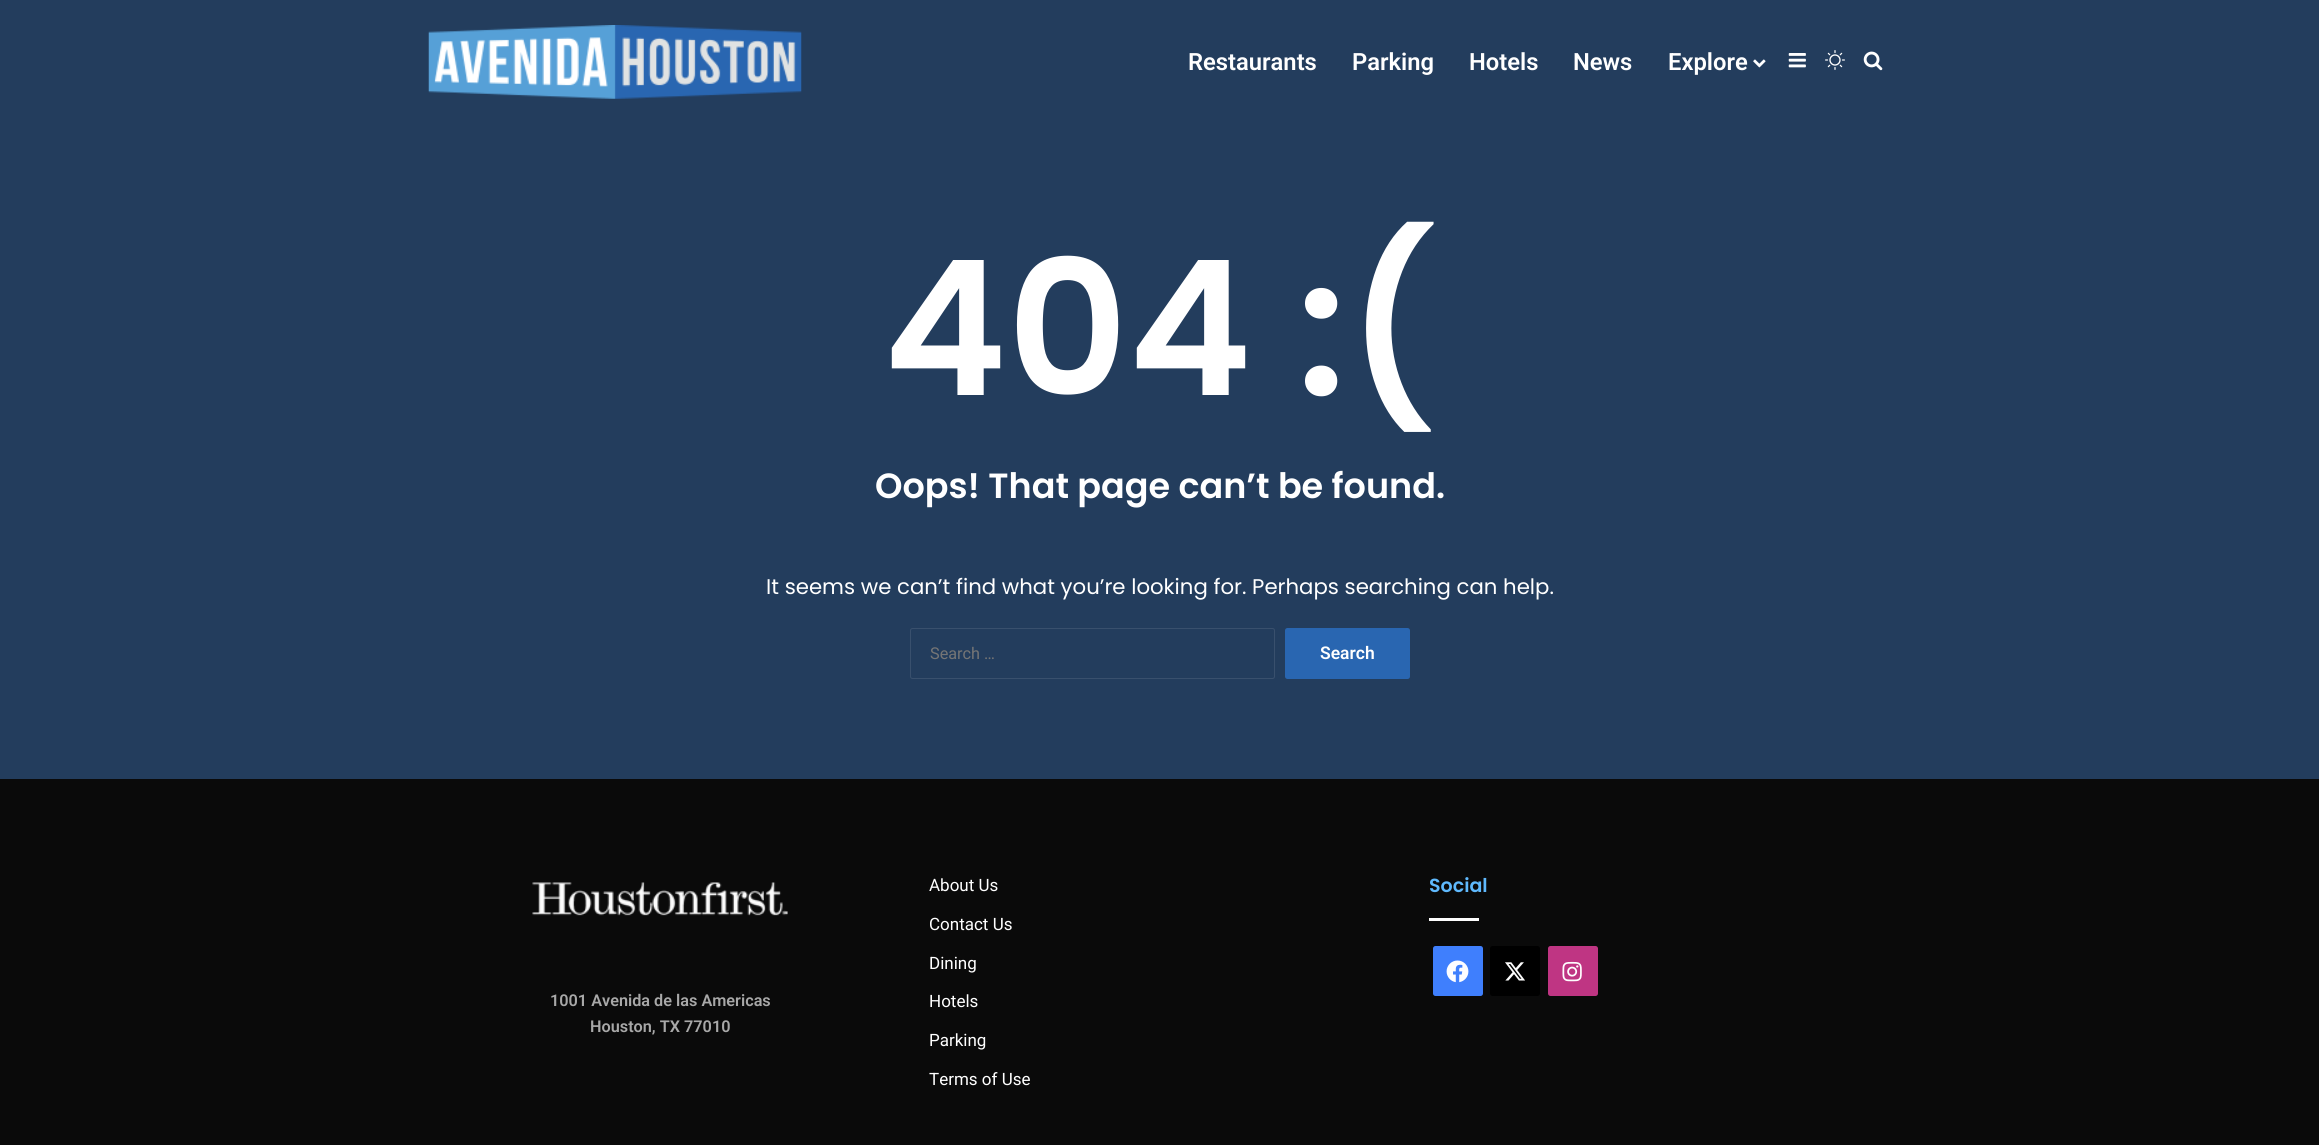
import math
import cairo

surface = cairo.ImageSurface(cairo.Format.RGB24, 2319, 1145)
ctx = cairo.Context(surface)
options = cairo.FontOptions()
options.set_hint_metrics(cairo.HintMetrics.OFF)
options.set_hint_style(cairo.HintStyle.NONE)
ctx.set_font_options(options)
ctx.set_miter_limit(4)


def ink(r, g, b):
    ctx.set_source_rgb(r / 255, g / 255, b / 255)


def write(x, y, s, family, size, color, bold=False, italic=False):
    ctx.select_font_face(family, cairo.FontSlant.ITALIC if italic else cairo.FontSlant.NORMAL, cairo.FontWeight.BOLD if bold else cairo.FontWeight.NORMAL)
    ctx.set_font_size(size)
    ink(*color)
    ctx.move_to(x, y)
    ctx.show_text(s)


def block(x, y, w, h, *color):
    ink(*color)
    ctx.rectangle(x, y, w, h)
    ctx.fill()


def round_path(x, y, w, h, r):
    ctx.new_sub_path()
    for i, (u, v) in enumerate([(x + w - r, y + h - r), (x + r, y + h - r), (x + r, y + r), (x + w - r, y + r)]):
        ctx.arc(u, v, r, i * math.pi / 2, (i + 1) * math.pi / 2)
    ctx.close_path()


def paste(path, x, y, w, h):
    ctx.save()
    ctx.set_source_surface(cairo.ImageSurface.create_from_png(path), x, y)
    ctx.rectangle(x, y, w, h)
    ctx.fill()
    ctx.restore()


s1 = dict(family="Roboto SemiBold", size=23.75, color=(255, 255, 255))
s2 = dict(family="Poppins SemiBold", size=187.5, color=(255, 255, 255))
s3 = dict(family="Poppins SemiBold", size=35, color=(255, 255, 255))
s4 = dict(family="Poppins", size=21.25, color=(255, 255, 255))
s5 = dict(family="Roboto", size=16.25, color=(117, 117, 117))
s6 = dict(family="Roboto SemiBold", size=17.5, color=(255, 255, 255))
s7 = dict(family="Roboto SemiBold", size=16.25, color=(168, 168, 168))
s8 = dict(family="Roboto", size=17, color=(255, 255, 255))
s9 = dict(family="Poppins SemiBold", size=19, color=(95, 185, 253))

ink(35, 61, 93)
ctx.paint()
paste("pic1.png", 428, 25, 374, 74)
write(1188, 70, "Restaurants", **s1)
write(1352, 70, "Parking", **s1)
write(1469, 70, "Hotels", **s1)
write(1573, 70, "News", **s1)
write(1668, 70, "Explore", **s1)
paste("pic2.png", 1753, 59, 13, 9)
paste("pic3.png", 1788, 53, 18, 15)
paste("pic4.png", 1825, 50, 20, 20)
paste("pic5.png", 1863, 51, 20, 20)
write(883, 395, "404 :(", **s2)
write(875, 498, "Oops! That page can’t be found.", **s3)
write(766, 594, "It seems we can’t find what you’re looking for. Perhaps searching can help.", **s4)
round_path(910.5, 628.5, 364, 50, 2)
ink(57, 80, 109)
ctx.set_line_width(1)
ctx.stroke()
write(930, 659, "Search …", **s5)
ink(41, 102, 177)
round_path(1285, 628, 125, 51, 2.5)
ctx.fill()
write(1320, 659, "Search", **s6)
block(0, 779, 2319, 366, 10, 10, 10)
paste("pic6.png", 532, 882, 256, 34)
write(550, 1006, "1001 Avenida de las Americas", **s7)
write(590, 1032, "Houston, TX 77010", **s7)
write(929, 891, "About Us", **s8)
write(929, 930, "Contact Us", **s8)
write(929, 969, "Dining", **s8)
write(929, 1007, "Hotels", **s8)
write(929, 1046, "Parking", **s8)
write(929, 1085, "Terms of Use", **s8)
write(1429, 892, "Social", **s9)
block(1429, 918, 50, 3, 253, 253, 253)
ink(63, 127, 253)
round_path(1433, 946, 50, 50, 2.5)
ctx.fill()
paste("pic7.png", 1446, 960, 23, 23)
ink(0, 0, 0)
round_path(1490, 946, 50, 50, 2.5)
ctx.fill()
paste("pic8.png", 1505, 962, 20, 19)
ink(191, 53, 131)
round_path(1548, 946, 50, 50, 2.5)
ctx.fill()
paste("pic9.png", 1562, 961, 20, 21)
surface.write_to_png("screenshot.png")
